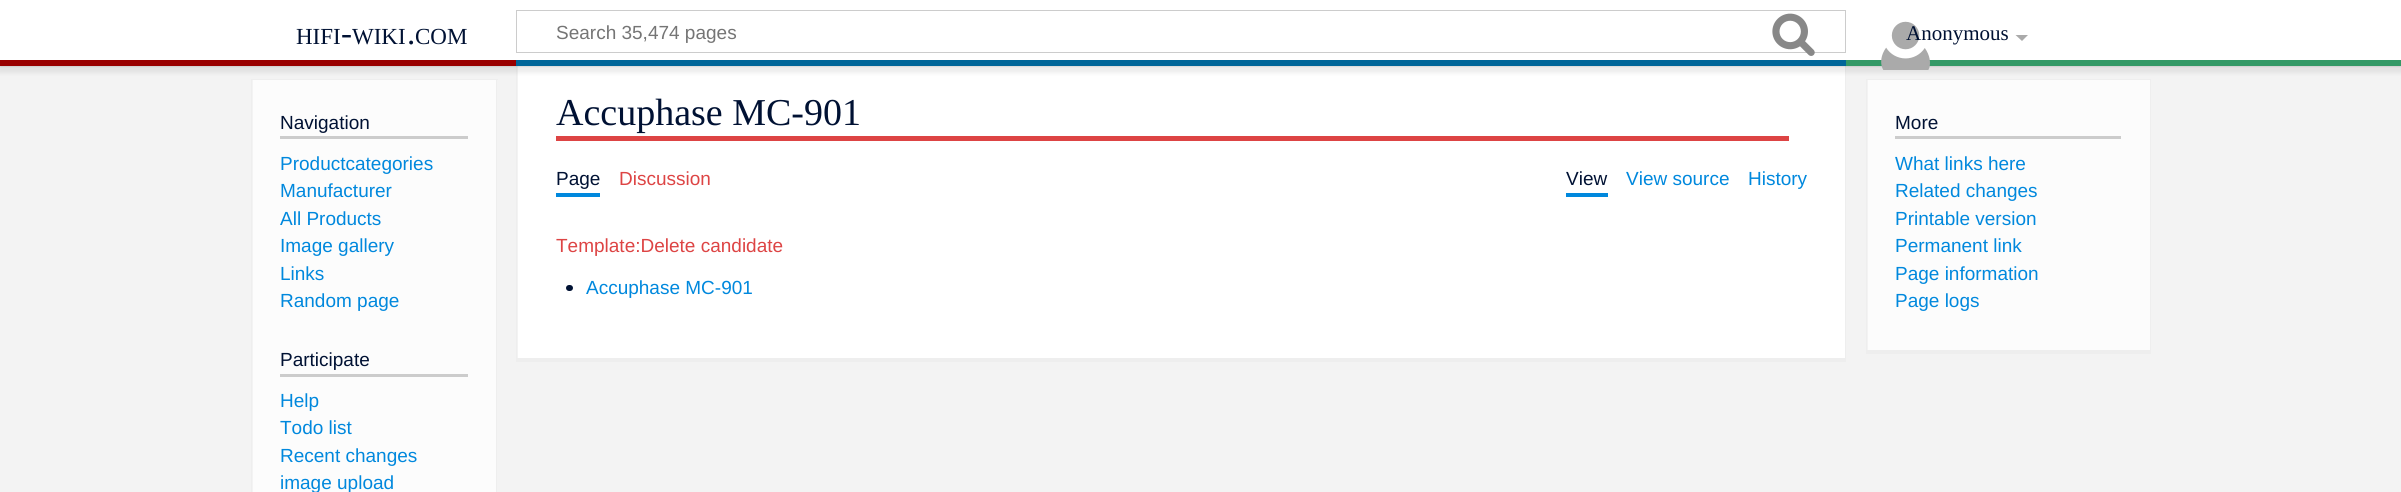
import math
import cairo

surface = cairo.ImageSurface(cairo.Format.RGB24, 2401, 492)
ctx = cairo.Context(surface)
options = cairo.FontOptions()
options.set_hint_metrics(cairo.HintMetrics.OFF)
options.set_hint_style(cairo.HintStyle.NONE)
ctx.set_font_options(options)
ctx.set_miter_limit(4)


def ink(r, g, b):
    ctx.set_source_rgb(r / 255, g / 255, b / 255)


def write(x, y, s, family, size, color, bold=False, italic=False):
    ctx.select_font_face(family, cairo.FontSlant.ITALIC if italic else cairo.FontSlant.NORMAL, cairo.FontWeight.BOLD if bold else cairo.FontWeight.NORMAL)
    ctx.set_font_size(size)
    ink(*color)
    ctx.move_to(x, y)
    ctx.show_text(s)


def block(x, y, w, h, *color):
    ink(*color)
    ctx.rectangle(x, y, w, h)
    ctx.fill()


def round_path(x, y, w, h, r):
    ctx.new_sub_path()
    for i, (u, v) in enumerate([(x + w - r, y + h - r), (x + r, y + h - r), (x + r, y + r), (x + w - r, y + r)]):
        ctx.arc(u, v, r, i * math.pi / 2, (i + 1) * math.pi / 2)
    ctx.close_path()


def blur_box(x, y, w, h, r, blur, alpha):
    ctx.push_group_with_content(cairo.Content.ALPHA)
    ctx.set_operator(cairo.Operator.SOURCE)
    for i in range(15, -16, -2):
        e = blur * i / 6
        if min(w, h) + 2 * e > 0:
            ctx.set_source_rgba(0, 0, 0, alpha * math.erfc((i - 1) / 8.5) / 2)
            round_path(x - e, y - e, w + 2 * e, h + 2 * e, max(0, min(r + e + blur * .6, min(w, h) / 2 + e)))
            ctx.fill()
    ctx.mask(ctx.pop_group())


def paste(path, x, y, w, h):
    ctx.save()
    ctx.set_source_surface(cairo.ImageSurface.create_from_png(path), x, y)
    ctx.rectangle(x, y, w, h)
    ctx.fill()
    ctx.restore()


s1 = dict(family="Liberation Serif", size=23, color=(0, 17, 51))
s2 = dict(family="Liberation Serif", size=33, color=(0, 17, 51))
s3 = dict(family="Liberation Sans", size=19, color=(117, 117, 117))
s4 = dict(family="Liberation Serif", size=21, color=(0, 17, 51))
s5 = dict(family="Liberation Sans", size=19, color=(0, 17, 51))
s6 = dict(family="Liberation Sans", size=19, color=(0, 136, 221))
s7 = dict(family="Liberation Serif", size=38, color=(0, 17, 51))
s8 = dict(family="Liberation Sans", size=19, color=(221, 68, 68))

ink(243, 243, 243)
ctx.paint()
block(518, 66, 1327, 292, 255, 255, 255)
block(1845, 60, 1, 301, 238, 238, 238)
block(516, 358, 1330, 4, 238, 238, 238)
block(516, 60, 1, 301, 238, 238, 238)
ink(0, 0, 0)
blur_box(0, 60, 2401, 6, 0, 1, 0.2)
block(251, 79, 247, 1, 238, 238, 238)
block(496, 79, 1, 413, 238, 238, 238)
block(251, 79, 1, 413, 238, 238, 238)
block(1866, 79, 285, 1, 238, 238, 238)
block(2150, 79, 1, 275, 238, 238, 238)
block(1866, 350, 285, 4, 238, 238, 238)
block(1866, 79, 1, 275, 238, 238, 238)
ink(0, 0, 0)
blur_box(-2, 61, 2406, 12, 0, 2, 0.07)
block(0, 0, 2401, 60, 255, 255, 255)
write(296, 44, "HIFI", **s1)
write(341, 44, "-", **s2)
write(352, 44, "WIKI", **s1)
write(415, 44, "COM", **s1)
write(407, 44, ".", **s2)
ctx.rectangle(516.5, 10.5, 1329, 42)
ink(204, 204, 204)
ctx.set_line_width(1)
ctx.stroke()
write(556, 39, "Search 35,474 pages", **s3)
paste("pic1.png", 1772, 13, 43, 43)
block(1846, 60, 555, 6, 51, 153, 102)
paste("pic2.png", 1881, 21, 49, 49)
write(1906, 40, "Anonymous", **s4)
ink(170, 170, 170)
ctx.new_path()
ctx.move_to(2028, 35)
ctx.line_to(2022, 41)
ctx.line_to(2015.5, 35)
ctx.close_path()
ctx.fill()
block(0, 60, 516, 6, 153, 0, 0)
block(516, 60, 1330, 6, 0, 102, 153)
block(253, 80, 243, 412, 252, 252, 252)
block(280, 136, 188, 3, 204, 204, 204)
write(280, 129, "Navigation", **s5)
write(280, 170, "Productcategories", **s6)
write(280, 197, "Manufacturer", **s6)
write(280, 225, "All Products", **s6)
write(280, 252, "Image gallery", **s6)
write(280, 280, "Links", **s6)
write(280, 307, "Random page", **s6)
block(280, 374, 188, 3, 204, 204, 204)
write(280, 366, "Participate", **s5)
write(280, 407, "Help", **s6)
write(280, 434, "Todo list", **s6)
write(280, 462, "Recent changes", **s6)
write(280, 489, "image upload", **s6)
block(556, 136, 1233, 5, 221, 68, 68)
write(556, 125, "Accuphase MC-901", **s7)
block(556, 193, 44, 4, 0, 136, 221)
write(556, 185, "Page", **s5)
write(619, 185, "Discussion", **s8)
block(1566, 193, 42, 4, 0, 136, 221)
write(1566, 185, "View", **s5)
write(1626, 185, "View source", **s6)
write(1748, 185, "History", **s6)
write(556, 252, "Template:Delete candidate", **s8)
ink(0, 17, 51)
round_path(566, 285, 7, 6, 3)
ctx.fill()
write(586, 294, "Accuphase MC-901", **s6)
block(1868, 80, 282, 270, 252, 252, 252)
block(1895, 136, 226, 3, 204, 204, 204)
write(1895, 129, "More", **s5)
write(1895, 170, "What links here", **s6)
write(1895, 197, "Related changes", **s6)
write(1895, 225, "Printable version", **s6)
write(1895, 252, "Permanent link", **s6)
write(1895, 280, "Page information", **s6)
write(1895, 307, "Page logs", **s6)
surface.write_to_png("screenshot.png")
